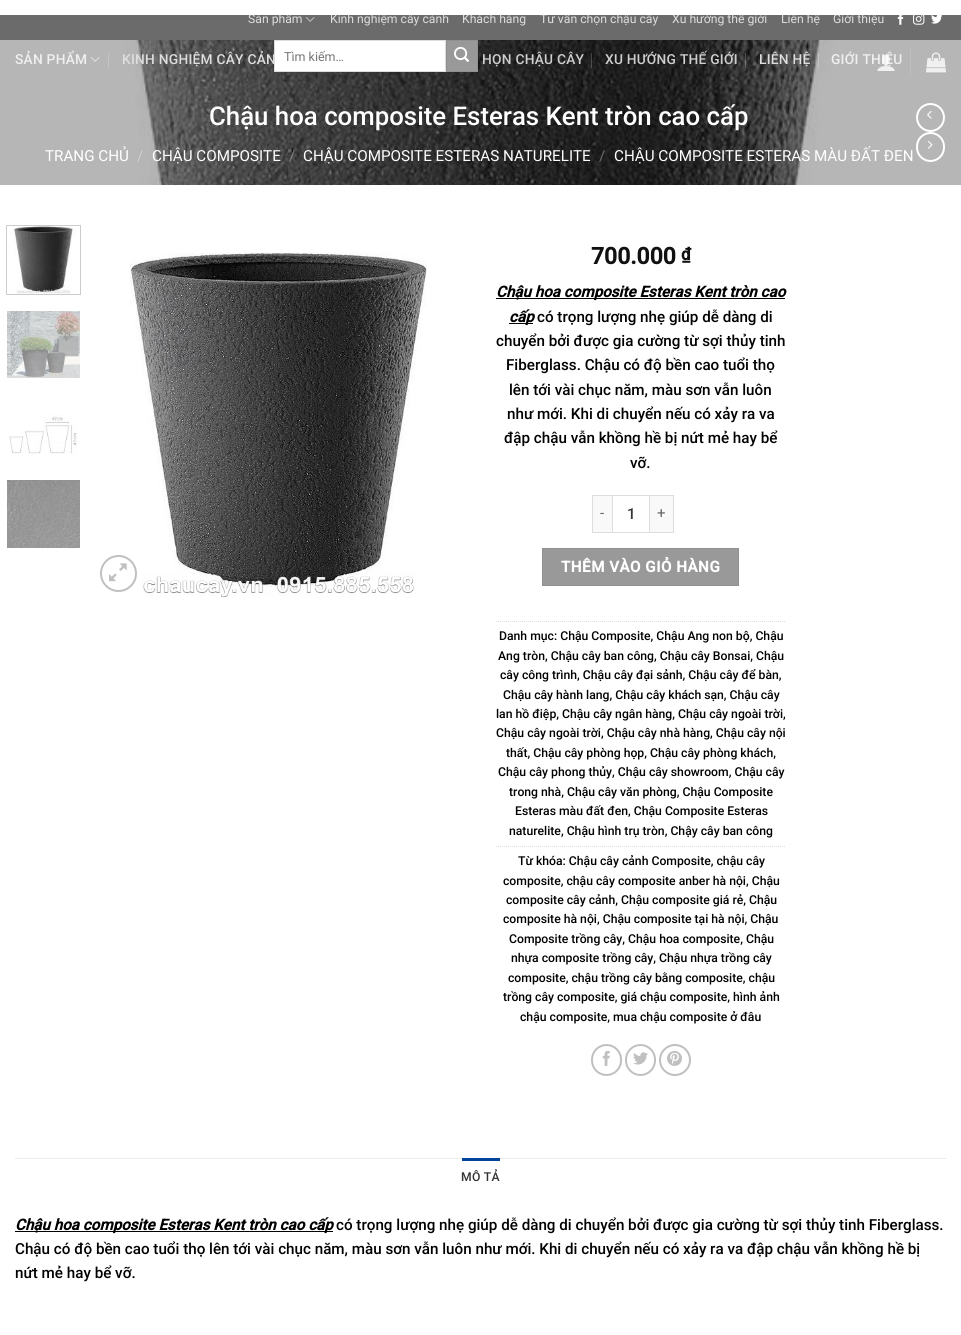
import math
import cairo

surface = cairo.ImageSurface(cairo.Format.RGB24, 961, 1335)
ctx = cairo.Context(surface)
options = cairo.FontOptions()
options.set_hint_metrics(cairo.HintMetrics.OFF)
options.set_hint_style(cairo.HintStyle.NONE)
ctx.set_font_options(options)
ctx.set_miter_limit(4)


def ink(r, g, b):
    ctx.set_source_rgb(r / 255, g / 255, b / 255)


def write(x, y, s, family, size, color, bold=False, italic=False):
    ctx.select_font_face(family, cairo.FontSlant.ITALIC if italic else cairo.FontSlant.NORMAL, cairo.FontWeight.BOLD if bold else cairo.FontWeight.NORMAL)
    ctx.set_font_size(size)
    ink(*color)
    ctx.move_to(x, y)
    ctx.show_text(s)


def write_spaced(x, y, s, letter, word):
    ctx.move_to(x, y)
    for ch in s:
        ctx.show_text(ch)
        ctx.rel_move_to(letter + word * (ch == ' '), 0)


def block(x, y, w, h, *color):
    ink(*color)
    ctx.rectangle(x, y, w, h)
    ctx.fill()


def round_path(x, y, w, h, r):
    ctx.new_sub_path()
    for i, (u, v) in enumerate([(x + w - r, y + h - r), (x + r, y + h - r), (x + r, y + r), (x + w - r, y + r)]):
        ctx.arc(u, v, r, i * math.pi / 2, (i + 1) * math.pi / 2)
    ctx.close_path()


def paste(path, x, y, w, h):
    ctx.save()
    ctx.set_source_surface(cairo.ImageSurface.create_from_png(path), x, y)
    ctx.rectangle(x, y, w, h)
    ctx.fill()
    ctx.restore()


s1 = dict(family="Roboto", size=12.2, color=(222, 222, 222))
s2 = dict(family="Roboto", size=12.5, color=(117, 117, 117))
s3 = dict(family="Roboto Medium", size=25.8, color=(255, 255, 255))
s4 = dict(family="Roboto", size=15.2, color=(255, 255, 255))
s5 = dict(family="Roboto", size=15.2, color=(207, 207, 207))
s6 = dict(family="Roboto", size=15.2, color=(129, 129, 129))
s7 = dict(family="Roboto", size=15.2, color=(108, 108, 108))
s8 = dict(family="Roboto", size=23, color=(17, 17, 17), bold=True)
s9 = dict(family="Roboto", size=17, color=(17, 17, 17), bold=True)
s10 = dict(family="Roboto", size=15.2, color=(0, 0, 0), bold=True, italic=True)
s11 = dict(family="Roboto Medium", size=15.2, color=(0, 0, 0))
s12 = dict(family="Roboto", size=15, color=(102, 102, 102))
s13 = dict(family="Roboto Medium", size=15.2, color=(51, 51, 51))
s14 = dict(family="Roboto Medium", size=12.2, color=(0, 0, 0))

ink(255, 255, 255)
ctx.paint()
block(0, 15, 961, 25, 107, 107, 107)
write(248, 23, "Sản phẩm", **s1)
paste("pic1.png", 305, 16, 10, 6)
write(330, 23, "Kinh nghiệm cây cảnh", **s1)
write(462, 23, "Khách hàng", **s1)
write(540, 23, "Tư vấn chọn chậu cây", **s1)
write(672, 23, "Xu hướng thế giới", **s1)
write(781, 23, "Liên hệ", **s1)
write(833, 23, "Giới thiệu", **s1)
paste("pic2.png", 897, 15, 7, 10)
paste("pic3.png", 913, 15, 12, 10)
paste("pic4.png", 931, 15, 12, 9)
paste("pic9.png", 0, 40, 961, 145)
ctx.select_font_face("Roboto Medium")
ctx.set_font_size(13.75)
ink(240, 240, 240)
write_spaced(15, 64, "SẢN PHẨM", 0.25, 0)
paste("pic5.png", 90, 57, 10, 5)
block(108, 53, 1, 15, 196, 196, 196)
ink(222, 222, 222)
write_spaced(122, 64, "KINH NGHIỆM CÂY CẢN", 0.25, 0)
ink(207, 207, 207)
write_spaced(482, 64, "HỌN CHẬU CÂY", 0.25, 0)
ctx.set_source_rgba(1, 1, 1, 0.2)
ctx.rectangle(591, 53, 1, 15)
ctx.fill()
ink(207, 207, 207)
write_spaced(605, 64, "XU HƯỚNG THẾ GIỚI", 0.25, 0)
ctx.set_source_rgba(1, 1, 1, 0.2)
ctx.rectangle(745, 53, 1, 15)
ctx.fill()
ink(222, 222, 222)
write_spaced(759, 64, "LIÊN HỆ", 0.25, 0)
ctx.set_source_rgba(1, 1, 1, 0.2)
ctx.rectangle(818, 53, 1, 15)
ctx.fill()
ink(240, 240, 240)
write_spaced(831, 64, "GIỚI THIỆU", 0.25, 0)
ink(255, 255, 255)
ctx.rectangle(274.5, 40.5, 171, 31)
ctx.fill_preserve()
ink(221, 221, 221)
ctx.set_line_width(1)
ctx.stroke()
write(284, 61, "Tìm kiếm…", **s2)
ink(153, 153, 153)
ctx.rectangle(446.5, 40.5, 31, 31)
ctx.fill_preserve()
ink(145, 145, 145)
ctx.stroke()
paste("pic6.png", 454, 46, 15, 16)
paste("pic7.png", 877, 54, 18, 17)
block(910, 47, 1, 30, 189, 189, 189)
paste("pic8.png", 926, 52, 20, 21)
write(209, 125, "Chậu hoa composite Esteras Kent tròn cao cấp", **s3)
write(45, 161, "TRANG CHỦ", **s4)
write(137, 161, "/", **s5)
write(152, 161, "CHẬU COMPOSITE", **s4)
write(289, 161, "/", **s6)
write(303, 161, "CHẬU COMPOSITE ESTERAS NATURELITE", **s4)
write(599, 161, "/", **s7)
write(614, 161, "CHẬU COMPOSITE ESTERAS MÀU ĐẤT ĐEN", **s4)
ctx.new_path()
ctx.arc(930.5, 117.5, 13.5, 0, 2 * math.pi)
ctx.set_line_width(2)
ctx.stroke()
paste("pic10.png", 927, 111, 5, 8)
round_path(917, 133, 27, 28, 13.5)
ctx.stroke()
paste("pic11.png", 928, 141, 5, 8)
ctx.rectangle(6.5, 225.5, 74, 69)
ink(204, 204, 204)
ctx.set_line_width(1)
ctx.stroke()
paste("pic12.png", 13, 226, 63, 68)
paste("pic13.png", 7, 311, 73, 67)
paste("pic14.png", 9, 414, 68, 40)
paste("pic15.png", 7, 480, 73, 68)
paste("pic17.png", 129, 252, 298, 345)
ctx.arc(118.5, 573.5, 17.5, 0, 2 * math.pi)
ink(192, 192, 192)
ctx.set_line_width(2)
ctx.stroke()
paste("pic16.png", 109, 563, 18, 19)
write(591, 264, "700.000", **s8)
write(681, 260, "₫", **s9)
block(496, 298, 289, 1, 0, 0, 0)
write(496, 297, "Chậu hoa composite Esteras Kent tròn cao", **s10)
block(509, 323, 24, 1, 0, 0, 0)
write(509, 322, "cấp", **s10)
write(537, 322, "có trọng lượng nhẹ giúp dễ dàng di", **s11)
write(496, 346, "chuyển bởi được gia cường từ sợi thủy tinh", **s11)
write(506, 370, "Fiberglass. Chậu có độ bền cao tuổi thọ", **s11)
write(509, 395, "lên tới vài chục năm, màu sơn vẫn luôn", **s11)
write(507, 419, "như mới. Khi di chuyển nếu có xảy ra va", **s11)
write(504, 443, "đập chậu vẫn khồng hề bị nứt mẻ hay bể", **s11)
write(630, 468, "vỡ.", **s11)
block(593, 496, 19, 36, 249, 249, 249)
block(592, 495, 20, 1, 221, 221, 221)
block(592, 532, 20, 1, 221, 221, 221)
block(592, 495, 1, 38, 221, 221, 221)
write(600, 518, "-", **s12)
ctx.rectangle(612.5, 495.5, 37, 37)
ink(221, 221, 221)
ctx.set_line_width(1)
ctx.stroke()
write(627, 519, "1", **s13)
block(650, 496, 23, 36, 249, 249, 249)
block(650, 495, 24, 1, 221, 221, 221)
block(673, 495, 1, 38, 221, 221, 221)
block(650, 532, 24, 1, 221, 221, 221)
write(657, 518, "+", **s12)
ink(153, 153, 153)
ctx.rectangle(542.5, 548.5, 196, 37)
ctx.fill_preserve()
ink(145, 145, 145)
ctx.stroke()
ctx.select_font_face("Roboto", cairo.FontSlant.NORMAL, cairo.FontWeight.BOLD)
ctx.set_font_size(15.2)
ink(255, 255, 255)
write_spaced(561, 572, "THÊM VÀO GIỎ HÀNG", 0.5, 0)
ctx.new_path()
ctx.move_to(496, 621.5)
ctx.line_to(786, 621.5)
ink(221, 221, 221)
ctx.set_dash([1, 1])
ctx.stroke()
write(499, 640, "Danh mục: Chậu Composite, Chậu Ang non bộ, Chậu", **s14)
write(498, 660, "Ang tròn, Chậu cây ban công, Chậu cây Bonsai, Chậu", **s14)
write(500, 679, "cây công trình, Chậu cây đại sảnh, Chậu cây để bàn,", **s14)
write(503, 699, "Chậu cây hành lang, Chậu cây khách sạn, Chậu cây", **s14)
write(496, 718, "lan hồ điệp, Chậu cây ngân hàng, Chậu cây ngoài trời,", **s14)
write(496, 737, "Chậu cây ngoài trời, Chậu cây nhà hàng, Chậu cây nội", **s14)
write(506, 757, "thất, Chậu cây phòng họp, Chậu cây phòng khách,", **s14)
write(498, 776, "Chậu cây phong thủy, Chậu cây showroom, Chậu cây", **s14)
write(509, 796, "trong nhà, Chậu cây văn phòng, Chậu Composite", **s14)
write(515, 815, "Esteras màu đất đen, Chậu Composite Esteras", **s14)
write(509, 835, "naturelite, Chậu hình trụ tròn, Chậy cây ban công", **s14)
ctx.new_path()
ctx.move_to(496, 846.5)
ctx.line_to(786, 846.5)
ink(221, 221, 221)
ctx.stroke()
write(518, 865, "Từ khóa: Chậu cây cảnh Composite, chậu cây", **s14)
write(503, 885, "composite, chậu cây composite anber hà nội, Chậu", **s14)
write(506, 904, "composite cây cảnh, Chậu composite giá rẻ, Chậu", **s14)
write(503, 923, "composite hà nội, Chậu composite tại hà nội, Chậu", **s14)
write(509, 943, "Composite trồng cây, Chậu hoa composite, Chậu", **s14)
write(511, 962, "nhựa composite trồng cây, Chậu nhựa trồng cây", **s14)
write(508, 982, "composite, chậu trồng cây bằng composite, chậu", **s14)
write(503, 1001, "trồng cây composite, giá chậu composite, hình ảnh", **s14)
write(520, 1021, "chậu composite, mua chậu composite ở đâu", **s14)
round_path(592, 1045, 29, 30, 14.5)
ink(192, 192, 192)
ctx.set_line_width(2)
ctx.set_dash([])
ctx.stroke()
paste("pic18.png", 602, 1050, 8, 16)
round_path(626, 1045, 29, 30, 14.5)
ctx.stroke()
paste("pic19.png", 633, 1052, 15, 13)
ctx.arc(675, 1060, 15, 0, 2 * math.pi)
ctx.stroke()
paste("pic20.png", 667, 1050, 15, 16)
block(15, 1158, 931, 1, 236, 236, 236)
block(462, 1158, 38, 3, 0, 67, 155)
ink(51, 51, 51)
write_spaced(461, 1181, "MÔ TẢ", 0.25, 0)
block(15, 1231, 318, 1, 0, 0, 0)
write(15, 1230, "Chậu hoa composite Esteras Kent tròn cao cấp", **s10)
write(336, 1230, "có trọng lượng nhẹ giúp dễ dàng di chuyển bởi được gia cường từ sợi thủy tinh Fiberglass.", **s11)
write(15, 1254, "Chậu có độ bền cao tuổi thọ lên tới vài chục năm, màu sơn vẫn luôn như mới. Khi di chuyển nếu có xảy ra va đập chậu vẫn khồng hề bị", **s11)
write(15, 1278, "nứt mẻ hay bể vỡ.", **s11)
block(249, 12, 627, 3, 255, 255, 255)
surface.write_to_png("screenshot.png")
